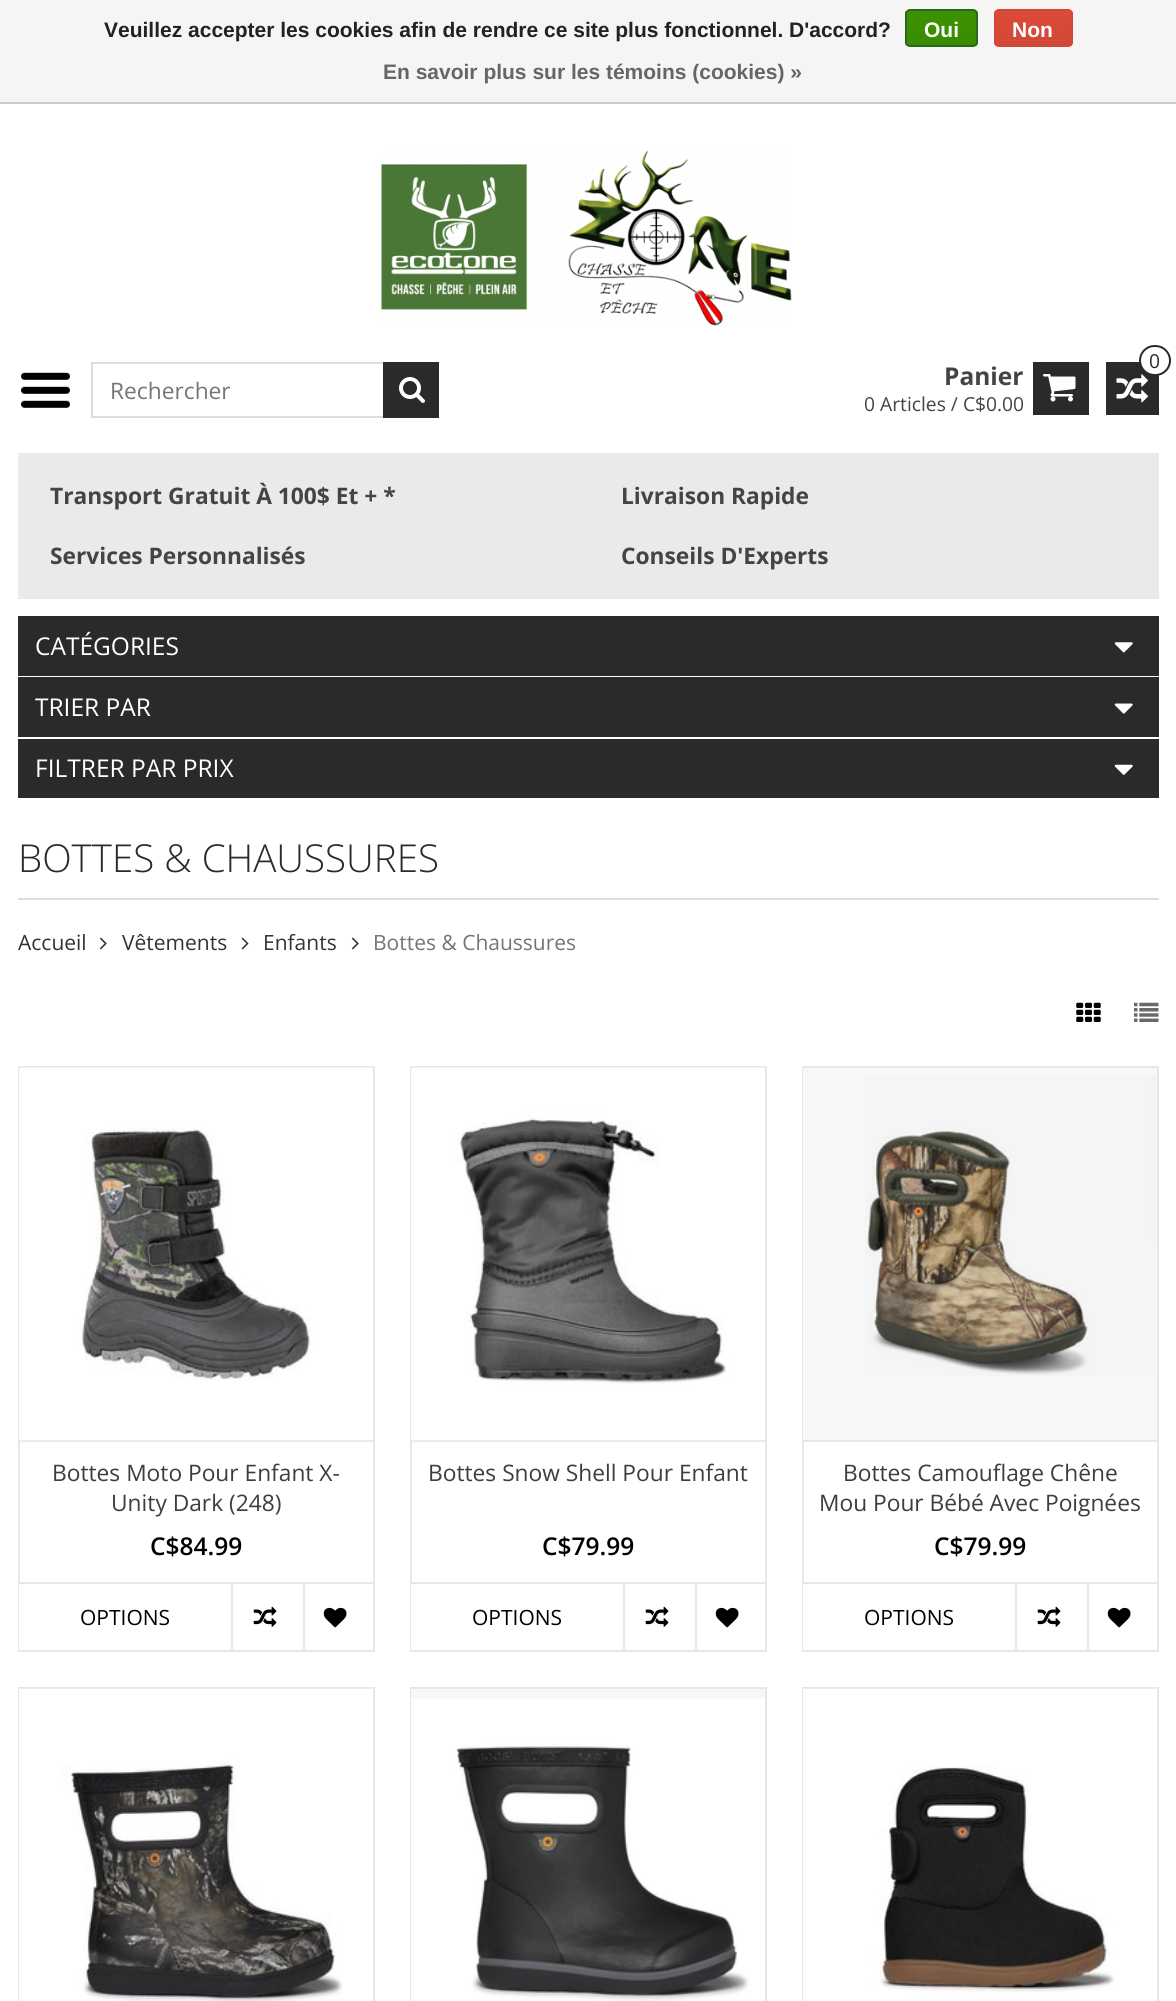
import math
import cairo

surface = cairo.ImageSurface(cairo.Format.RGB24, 1176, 2001)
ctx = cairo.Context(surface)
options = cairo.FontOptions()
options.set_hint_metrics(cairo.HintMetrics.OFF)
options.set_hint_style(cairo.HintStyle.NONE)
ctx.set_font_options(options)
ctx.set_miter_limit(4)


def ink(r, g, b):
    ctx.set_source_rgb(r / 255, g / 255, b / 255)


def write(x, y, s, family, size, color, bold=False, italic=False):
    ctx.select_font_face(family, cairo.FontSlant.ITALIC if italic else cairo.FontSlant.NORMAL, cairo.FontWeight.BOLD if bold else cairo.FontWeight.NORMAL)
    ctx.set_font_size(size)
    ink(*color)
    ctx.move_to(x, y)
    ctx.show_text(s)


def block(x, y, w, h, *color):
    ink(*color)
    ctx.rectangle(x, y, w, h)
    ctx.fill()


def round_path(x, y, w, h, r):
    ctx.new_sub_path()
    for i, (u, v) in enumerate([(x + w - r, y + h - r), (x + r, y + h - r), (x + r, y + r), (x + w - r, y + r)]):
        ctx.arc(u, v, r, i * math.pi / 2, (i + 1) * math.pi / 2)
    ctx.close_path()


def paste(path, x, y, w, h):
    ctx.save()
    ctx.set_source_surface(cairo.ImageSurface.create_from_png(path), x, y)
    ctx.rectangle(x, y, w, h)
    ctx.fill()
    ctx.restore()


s1 = dict(family="Liberation Sans", size=21, color=(34, 34, 34), bold=True)
s2 = dict(family="Liberation Sans", size=21, color=(255, 255, 255), bold=True)
s3 = dict(family="Liberation Sans", size=21, color=(102, 102, 102), bold=True)
s4 = dict(family="Open Sans", size=19.25, color=(42, 42, 42))
s5 = dict(family="Open Sans", size=22.75, color=(117, 117, 117))
s6 = dict(family="Open Sans", size=24.5, color=(68, 68, 68), bold=True)
s7 = dict(family="Open Sans", size=19.25, color=(68, 68, 68))
s8 = dict(family="Open Sans", size=22.75, color=(68, 68, 68), bold=True)
s9 = dict(family="Open Sans", size=24.5, color=(255, 255, 255))
s10 = dict(family="Open Sans Light", size=38.5, color=(42, 42, 42))
s11 = dict(family="Open Sans", size=21, color=(51, 51, 51))
s12 = dict(family="Open Sans", size=21, color=(117, 117, 117))
s13 = dict(family="Open Sans", size=22.75, color=(61, 61, 61))
s14 = dict(family="Open Sans SemiBold", size=24.5, color=(0, 0, 0))
s15 = dict(family="Open Sans", size=21, color=(0, 0, 0))

ink(255, 255, 255)
ctx.paint()
block(0, 0, 1176, 102, 245, 245, 245)
block(0, 102, 1176, 2, 204, 204, 204)
write(104, 37, "Veuillez accepter les cookies afin de rendre ce site plus fonctionnel. D'accord?", **s1)
ctx.save()
round_path(905, 9, 73, 38, 5)
ctx.clip()
gradient = cairo.LinearGradient(942, 10, 942, 46)
gradient.add_color_stop_rgba(0, 0.235, 0.576, 0, 1)
gradient.add_color_stop_rgba(1, 0.224, 0.541, 0, 1)
ctx.set_source(gradient)
ctx.rectangle(905, 11, 73, 35)
ctx.fill()
ctx.restore()
round_path(906, 10, 71, 36, 4)
ink(41, 105, 29)
ctx.stroke()
write(924, 37, "Oui", **s2)
ctx.save()
round_path(994, 9, 79, 38, 5)
ctx.clip()
gradient = cairo.LinearGradient(1033, 10, 1033, 46)
gradient.add_color_stop_rgba(0, 0.863, 0.29, 0.22, 1)
gradient.add_color_stop_rgba(1, 0.82, 0.282, 0.212, 1)
ctx.set_source(gradient)
ctx.rectangle(994, 11, 79, 35)
ctx.fill()
ctx.restore()
round_path(995, 10, 77, 36, 4)
ink(209, 72, 54)
ctx.stroke()
write(1012, 37, "Non", **s2)
write(383, 79, "En savoir plus sur les témoins (cookies) »", **s3)
paste("pic1.png", 381, 150, 411, 176)
block(1106, 362, 53, 53, 42, 42, 42)
paste("pic2.png", 1116, 374, 32, 29)
ink(255, 255, 255)
round_path(1140, 346, 30, 29, 14.5)
ctx.fill_preserve()
ink(42, 42, 42)
ctx.stroke()
write(1149, 368, "0", **s4)
paste("pic3.png", 21, 372, 49, 36)
ctx.rectangle(92, 363, 346, 54)
ink(221, 221, 221)
ctx.stroke()
write(110, 399, "Rechercher", **s5)
block(383, 362, 56, 56, 42, 42, 42)
paste("pic4.png", 399, 377, 26, 26)
write(944, 385, "Panier", **s6)
write(864, 411, "0 Articles / C$0.00", **s7)
block(1033, 362, 56, 53, 42, 42, 42)
paste("pic5.png", 1043, 374, 33, 28)
block(18, 453, 1141, 146, 234, 234, 234)
write(50, 504, "Transport Gratuit À 100$ Et + *", **s8)
write(621, 504, "Livraison Rapide", **s8)
write(50, 564, "Services Personnalisés", **s8)
write(621, 564, "Conseils D'Experts", **s8)
block(18, 616, 1141, 60, 42, 42, 42)
write(35, 655, "CATÉGORIES", **s9)
paste("pic6.png", 1114, 642, 19, 11)
block(18, 677, 1141, 60, 42, 42, 42)
write(35, 716, "TRIER PAR", **s9)
paste("pic7.png", 1114, 703, 19, 11)
block(18, 739, 1141, 59, 42, 42, 42)
write(35, 777, "FILTRER PAR PRIX", **s9)
paste("pic8.png", 1114, 764, 19, 11)
block(18, 898, 1141, 2, 221, 221, 221)
write(18, 872, "BOTTES & CHAUSSURES", **s10)
write(18, 950, "Accueil", **s11)
paste("pic9.png", 99, 937, 8, 13)
write(122, 950, "Vêtements", **s11)
paste("pic10.png", 241, 937, 8, 13)
write(263, 950, "Enfants", **s11)
paste("pic9.png", 351, 937, 8, 13)
write(373, 950, "Bottes & Chaussures", **s12)
paste("pic11.png", 1076, 1002, 25, 20)
paste("pic12.png", 1134, 1002, 25, 20)
block(18, 1066, 357, 2, 231, 231, 231)
block(373, 1066, 2, 374, 231, 231, 231)
block(18, 1066, 2, 374, 231, 231, 231)
ctx.rectangle(19, 1441, 355, 210)
ctx.stroke()
paste("pic13.png", 19, 1067, 354, 374)
write(52, 1481, "Bottes Moto Pour Enfant X-", **s13)
write(111, 1511, "Unity Dark (248)", **s13)
write(150, 1555, "C$84.99", **s14)
block(19, 1584, 1, 66, 255, 255, 255)
block(19, 1582, 354, 2, 231, 231, 231)
write(80, 1625, "OPTIONS", **s15)
block(231, 1584, 2, 66, 231, 231, 231)
paste("pic14.png", 253, 1606, 24, 21)
block(303, 1584, 2, 66, 231, 231, 231)
paste("pic15.png", 323, 1607, 24, 21)
block(410, 1066, 357, 2, 231, 231, 231)
block(765, 1066, 2, 374, 231, 231, 231)
block(410, 1066, 2, 374, 231, 231, 231)
ctx.rectangle(411, 1441, 355, 210)
ctx.stroke()
paste("pic16.png", 411, 1067, 354, 374)
write(428, 1481, "Bottes Snow Shell Pour Enfant", **s13)
write(542, 1555, "C$79.99", **s14)
block(411, 1584, 1, 66, 255, 255, 255)
block(411, 1582, 354, 2, 231, 231, 231)
write(472, 1625, "OPTIONS", **s15)
block(623, 1584, 2, 66, 231, 231, 231)
paste("pic14.png", 645, 1606, 24, 21)
block(695, 1584, 2, 66, 231, 231, 231)
paste("pic15.png", 715, 1607, 24, 21)
block(802, 1066, 357, 2, 231, 231, 231)
block(1157, 1066, 2, 374, 231, 231, 231)
block(802, 1066, 2, 374, 231, 231, 231)
block(803, 1068, 354, 372, 247, 247, 247)
paste("pic17.png", 865, 1076, 291, 300)
ctx.rectangle(803, 1441, 355, 210)
ink(231, 231, 231)
ctx.stroke()
write(843, 1481, "Bottes Camouflage Chêne", **s13)
write(819, 1511, "Mou Pour Bébé Avec Poignées", **s13)
write(934, 1555, "C$79.99", **s14)
block(803, 1584, 1, 66, 255, 255, 255)
block(803, 1582, 354, 2, 231, 231, 231)
write(864, 1625, "OPTIONS", **s15)
block(1015, 1584, 2, 66, 231, 231, 231)
paste("pic14.png", 1037, 1606, 24, 21)
block(1087, 1584, 2, 66, 231, 231, 231)
paste("pic15.png", 1107, 1607, 24, 21)
block(18, 1687, 357, 2, 231, 231, 231)
block(373, 1687, 2, 314, 231, 231, 231)
block(18, 1687, 2, 314, 231, 231, 231)
paste("pic18.png", 19, 1688, 354, 313)
block(410, 1687, 357, 2, 231, 231, 231)
block(765, 1687, 2, 314, 231, 231, 231)
block(410, 1687, 2, 314, 231, 231, 231)
block(411, 1689, 354, 312, 247, 247, 247)
paste("pic19.png", 411, 1698, 354, 303)
block(802, 1687, 357, 2, 231, 231, 231)
block(1157, 1687, 2, 314, 231, 231, 231)
block(802, 1687, 2, 314, 231, 231, 231)
paste("pic20.png", 803, 1688, 354, 313)
surface.write_to_png("screenshot.png")
